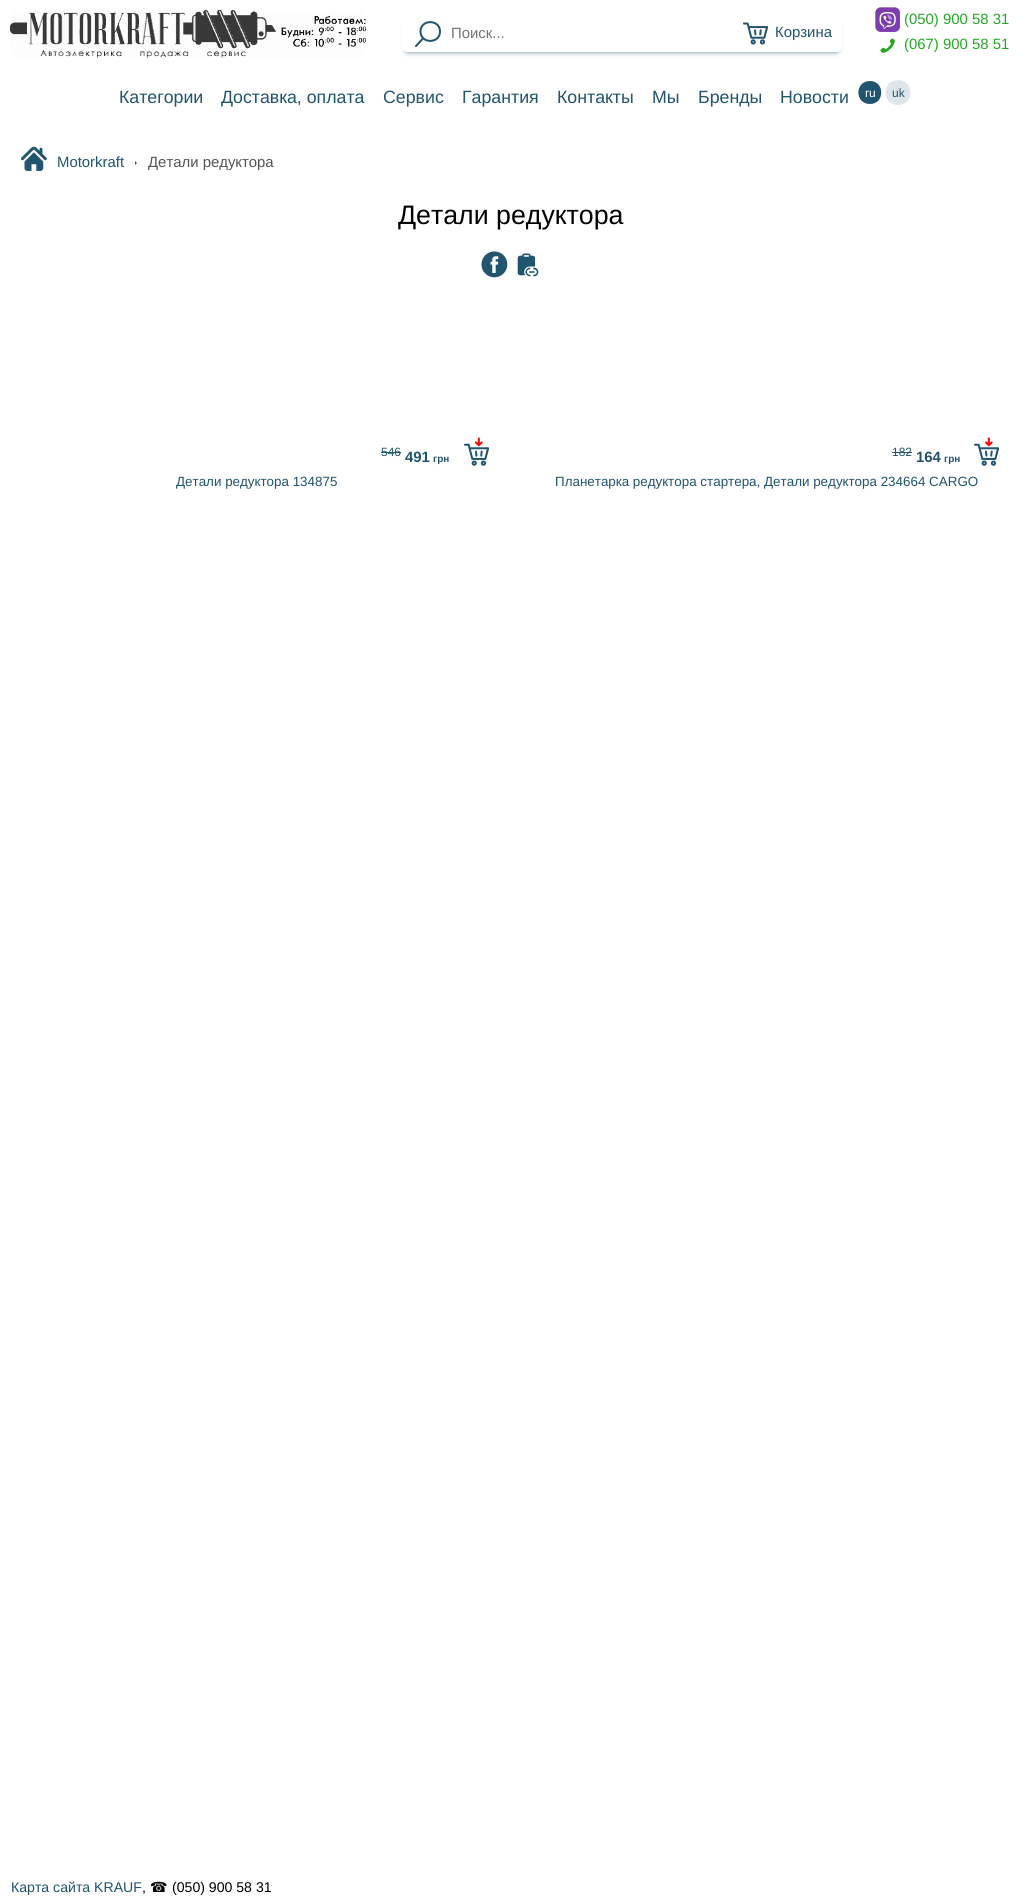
import math
import cairo

surface = cairo.ImageSurface(cairo.Format.RGB24, 1021, 1903)
ctx = cairo.Context(surface)
options = cairo.FontOptions()
options.set_hint_metrics(cairo.HintMetrics.OFF)
options.set_hint_style(cairo.HintStyle.NONE)
ctx.set_font_options(options)
ctx.set_miter_limit(4)


def ink(r, g, b):
    ctx.set_source_rgb(r / 255, g / 255, b / 255)


def write(x, y, s, family, size, color, bold=False, italic=False):
    ctx.select_font_face(family, cairo.FontSlant.ITALIC if italic else cairo.FontSlant.NORMAL, cairo.FontWeight.BOLD if bold else cairo.FontWeight.NORMAL)
    ctx.set_font_size(size)
    ink(*color)
    ctx.move_to(x, y)
    ctx.show_text(s)


def block(x, y, w, h, *color):
    ink(*color)
    ctx.rectangle(x, y, w, h)
    ctx.fill()


def round_path(x, y, w, h, r):
    ctx.new_sub_path()
    for i, (u, v) in enumerate([(x + w - r, y + h - r), (x + r, y + h - r), (x + r, y + r), (x + w - r, y + r)]):
        ctx.arc(u, v, r, i * math.pi / 2, (i + 1) * math.pi / 2)
    ctx.close_path()


def blur_box(x, y, w, h, r, blur, alpha):
    ctx.push_group_with_content(cairo.Content.ALPHA)
    ctx.set_operator(cairo.Operator.SOURCE)
    for i in range(15, -16, -2):
        e = blur * i / 6
        if min(w, h) + 2 * e > 0:
            ctx.set_source_rgba(0, 0, 0, alpha * math.erfc((i - 1) / 8.5) / 2)
            round_path(x - e, y - e, w + 2 * e, h + 2 * e, max(0, min(r + e + blur * .6, min(w, h) / 2 + e)))
            ctx.fill()
    ctx.mask(ctx.pop_group())


def paste(path, x, y, w, h):
    ctx.save()
    ctx.set_source_surface(cairo.ImageSurface.create_from_png(path), x, y)
    ctx.rectangle(x, y, w, h)
    ctx.fill()
    ctx.restore()


s1 = dict(family="Liberation Sans", size=14.9, color=(117, 117, 117))
s2 = dict(family="Liberation Sans", size=14.9, color=(32, 84, 111))
s3 = dict(family="Liberation Sans", size=14.9, color=(34, 170, 34))
s4 = dict(family="Liberation Sans", size=17.75, color=(32, 84, 111))
s5 = dict(family="Liberation Sans", size=12, color=(255, 255, 255))
s6 = dict(family="Liberation Sans", size=12, color=(32, 84, 111))
s7 = dict(family="Liberation Sans", size=14.9, color=(85, 85, 85))
s8 = dict(family="Liberation Sans", size=26.75, color=(0, 0, 0))
s9 = dict(family="Liberation Sans", size=14.9, color=(32, 84, 111), bold=True)
s10 = dict(family="Liberation Sans", size=10, color=(32, 84, 111), bold=True)
s11 = dict(family="Liberation Sans", size=13.4, color=(32, 84, 111))
s12 = dict(family="Liberation Sans", size=14.1, color=(32, 84, 111))
s13 = dict(family="Liberation Sans", size=14.1, color=(0, 0, 0))
s14 = dict(family="DejaVu Sans", size=14.1, color=(0, 0, 0))

ink(255, 255, 255)
ctx.paint()
paste("pic1.png", 10, 10, 356, 48)
ctx.save()
ctx.set_fill_rule(cairo.FillRule.EVEN_ODD)
ctx.new_path()
ctx.move_to(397, 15)
ctx.line_to(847, 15)
ctx.line_to(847, 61)
ctx.line_to(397, 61)
ctx.close_path()
ctx.move_to(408, 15)
ctx.line_to(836, 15)
ctx.curve_to(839.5, 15, 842, 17.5, 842, 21)
ctx.line_to(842, 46)
ctx.curve_to(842, 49.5, 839.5, 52, 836, 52)
ctx.line_to(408, 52)
ctx.curve_to(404.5, 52, 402, 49.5, 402, 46)
ctx.line_to(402, 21)
ctx.curve_to(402, 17.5, 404.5, 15, 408, 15)
ctx.close_path()
ctx.clip()
ink(32, 84, 111)
blur_box(407, 25, 430, 26, 0.5, 3, 1)
ctx.restore()
ctx.new_path()
ctx.move_to(420.5, 31.5)
ctx.curve_to(420.5, 44, 440, 44, 440, 31.5)
ctx.curve_to(440, 19, 420.5, 19, 420.5, 31.5)
ctx.move_to(423, 38.5)
ctx.line_to(416, 46)
ink(32, 84, 111)
ctx.set_line_cap(cairo.LineCap.ROUND)
ctx.set_line_join(cairo.LineJoin.ROUND)
ctx.stroke()
write(451, 38, "Поиск...", **s1)
paste("pic2.png", 743, 22, 26, 23)
write(775, 37, "Корзина", **s2)
paste("pic3.png", 875, 7, 25, 25)
write(904, 24, "(050) 900 58 31", **s3)
paste("pic4.png", 880, 38, 15, 15)
write(904, 49, "(067) 900 58 51", **s3)
write(119, 103, "Категории", **s4)
write(221, 103, "Доставка, оплата", **s4)
write(383, 103, "Сервис", **s4)
write(462, 103, "Гарантия", **s4)
write(557, 103, "Контакты", **s4)
write(652, 103, "Мы", **s4)
write(698, 103, "Бренды", **s4)
write(780, 103, "Новости", **s4)
ctx.set_fill_rule(cairo.FillRule.EVEN_ODD)
ctx.new_path()
ctx.move_to(870, 81)
ctx.curve_to(885, 81, 885, 104, 870, 104)
ctx.curve_to(854.5, 104, 854.5, 81, 870, 81)
ctx.close_path()
ctx.fill()
write(865, 97, "ru", **s5)
ink(222, 230, 233)
ctx.new_path()
ctx.move_to(898, 80)
ctx.curve_to(914.5, 80, 914.5, 105, 898, 105)
ctx.curve_to(881.5, 105, 881.5, 80, 898, 80)
ctx.close_path()
ctx.fill()
write(892, 97, "uk", **s6)
paste("pic5.png", 20, 146, 27, 25)
write(57, 167, "Motorkraft", **s2)
ink(85, 85, 85)
ctx.set_fill_rule(cairo.FillRule.WINDING)
ctx.new_path()
ctx.move_to(135, 165)
ctx.line_to(135, 161)
ctx.line_to(137, 163)
ctx.close_path()
ctx.fill()
write(148, 167, "Детали редуктора", **s7)
write(398, 224, "Детали редуктора", **s8)
paste("pic6.png", 481, 251, 27, 27)
paste("pic7.png", 517, 253, 22, 24)
write(381, 456, "546", **s6)
block(381, 452, 20, 1, 32, 84, 111)
write(405, 462, "491", **s9)
write(433, 462, "грн", **s10)
write(176, 486, "Детали редуктора 134875", **s11)
paste("pic8.png", 464, 437, 26, 29)
write(892, 456, "182", **s6)
block(892, 452, 20, 1, 32, 84, 111)
write(916, 462, "164", **s9)
write(944, 462, "грн", **s10)
write(555, 486, "Планетарка редуктора стартера, Детали редуктора 234664 CARGO", **s11)
paste("pic8.png", 974, 437, 26, 29)
write(11, 1892, "Карта сайта KRAUF", **s12)
write(142, 1892, ",", **s13)
write(150, 1892, "☎", **s14)
write(172, 1892, "(050) 900 58 31", **s13)
surface.write_to_png("screenshot.png")
